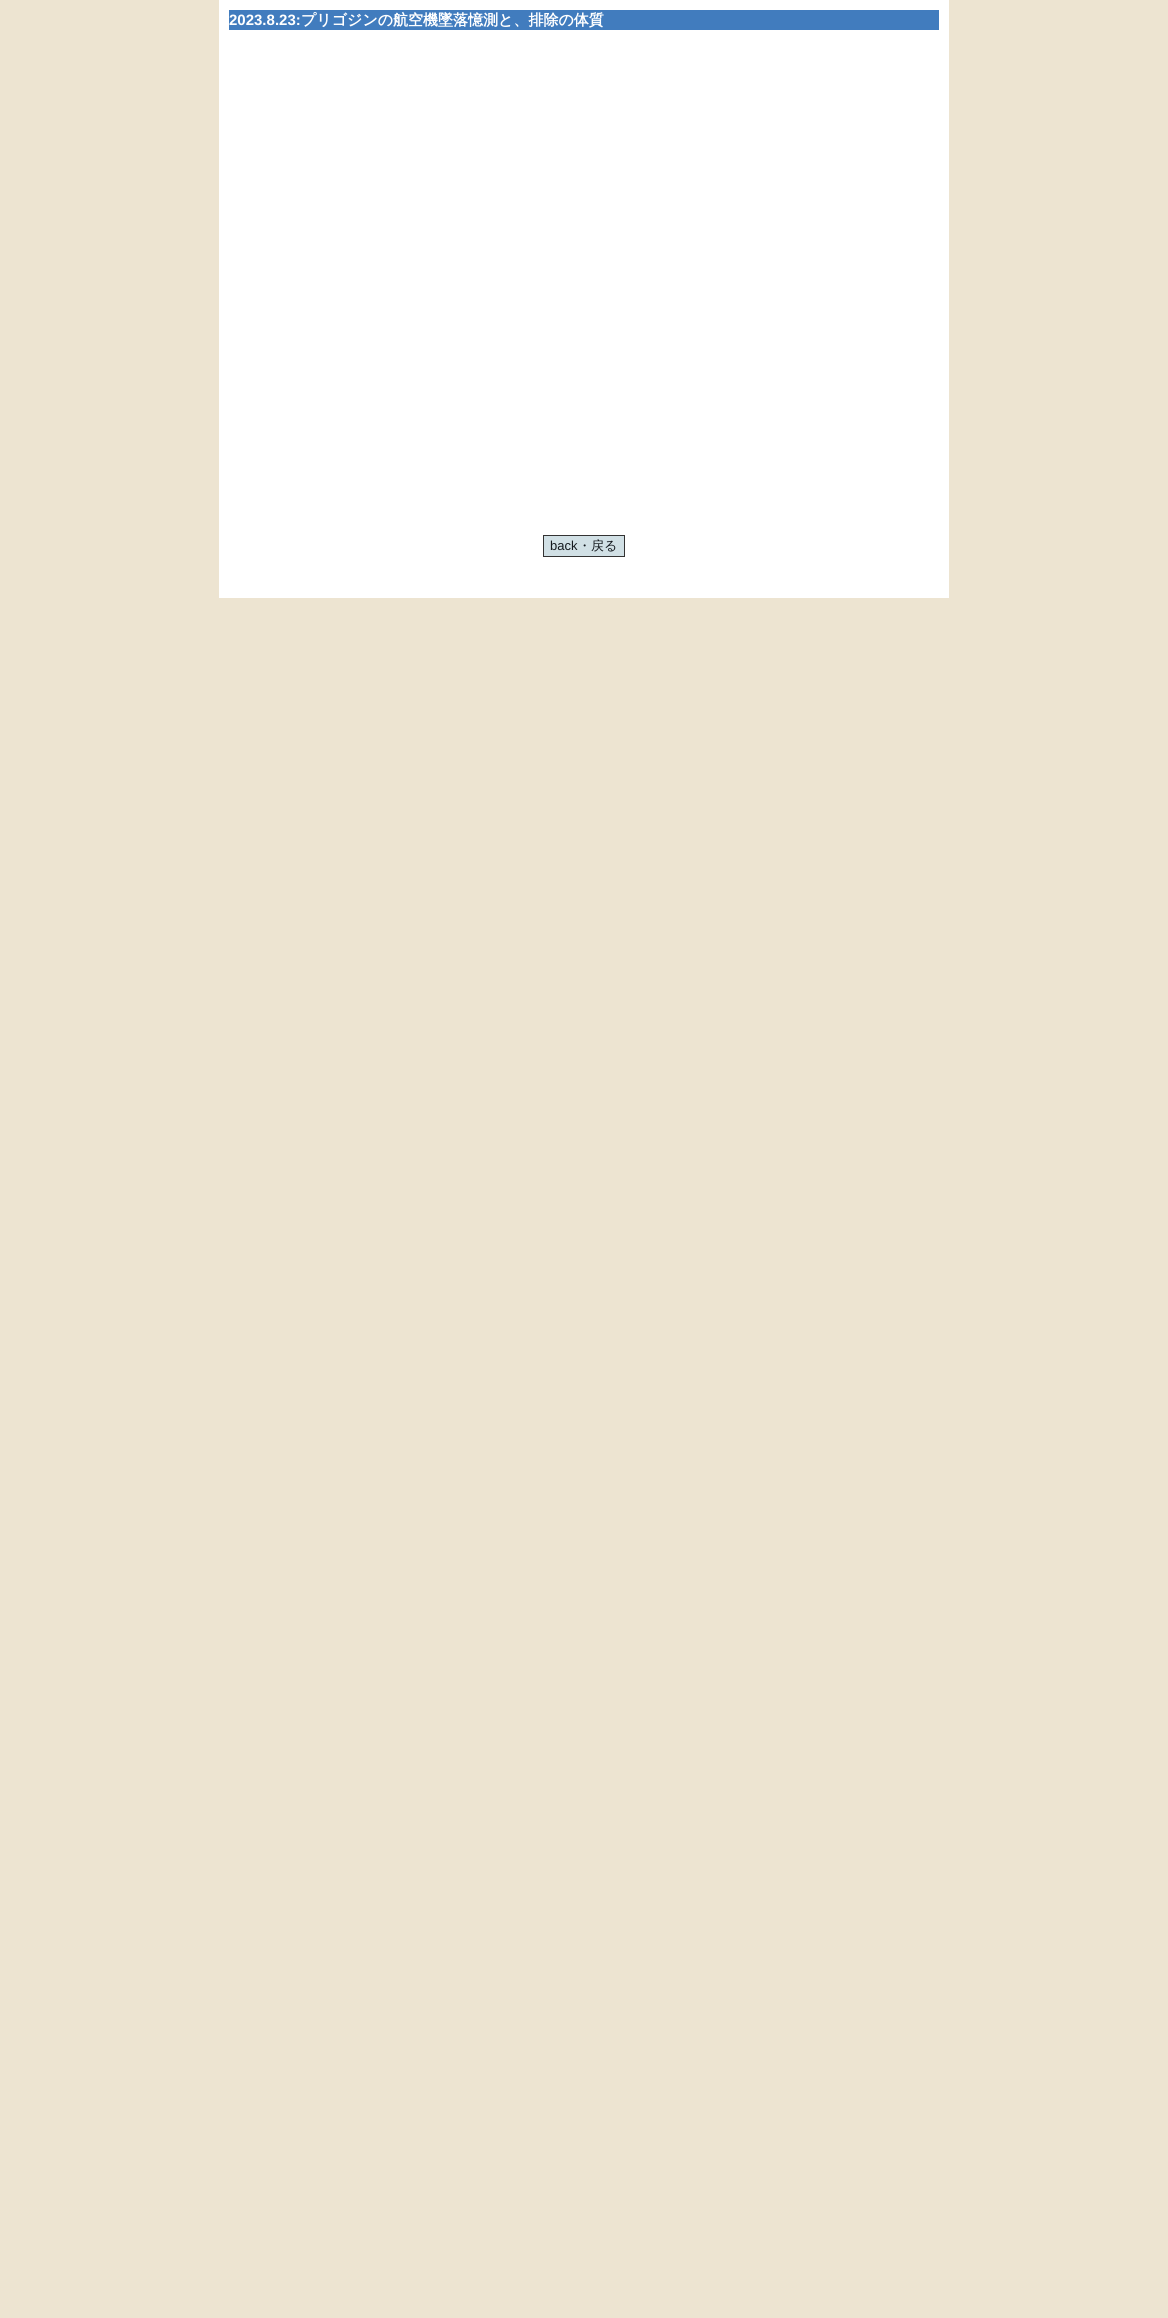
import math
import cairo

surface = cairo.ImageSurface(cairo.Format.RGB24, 1168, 2318)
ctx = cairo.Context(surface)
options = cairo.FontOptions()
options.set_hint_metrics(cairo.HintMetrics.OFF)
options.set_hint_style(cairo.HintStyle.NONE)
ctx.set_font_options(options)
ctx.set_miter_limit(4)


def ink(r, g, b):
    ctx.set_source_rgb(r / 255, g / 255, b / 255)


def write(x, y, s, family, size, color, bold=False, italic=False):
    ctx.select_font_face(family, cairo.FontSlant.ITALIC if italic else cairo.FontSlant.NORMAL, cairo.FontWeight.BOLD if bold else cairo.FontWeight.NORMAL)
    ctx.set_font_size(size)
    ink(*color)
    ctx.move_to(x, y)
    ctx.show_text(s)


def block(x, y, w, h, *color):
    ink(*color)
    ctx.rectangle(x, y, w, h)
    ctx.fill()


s1 = dict(family="Liberation Sans", size=15, color=(255, 255, 255), bold=True)
s2 = dict(family="WenQuanYi Zen Hei", size=15, color=(255, 255, 255), bold=True)
s3 = dict(family="Liberation Sans", size=13, color=(20, 25, 30))
s4 = dict(family="WenQuanYi Zen Hei Medium", size=13, color=(20, 25, 30))

ink(237, 228, 209)
ctx.paint()
block(219, 0, 730, 598, 255, 255, 255)
block(229, 10, 710, 20, 65, 124, 190)
write(229, 25, "2023.8.23:", **s1)
write(301, 25, "プリゴジンの航空機墜落憶測と、排除の体質", **s2)
ink(209, 224, 229)
ctx.rectangle(543.5, 535.5, 81, 21)
ctx.fill_preserve()
ink(51, 51, 51)
ctx.set_line_width(1)
ctx.stroke()
write(550, 550, "back", **s3)
write(578, 550, "・戻る", **s4)
surface.write_to_png("screenshot.png")
